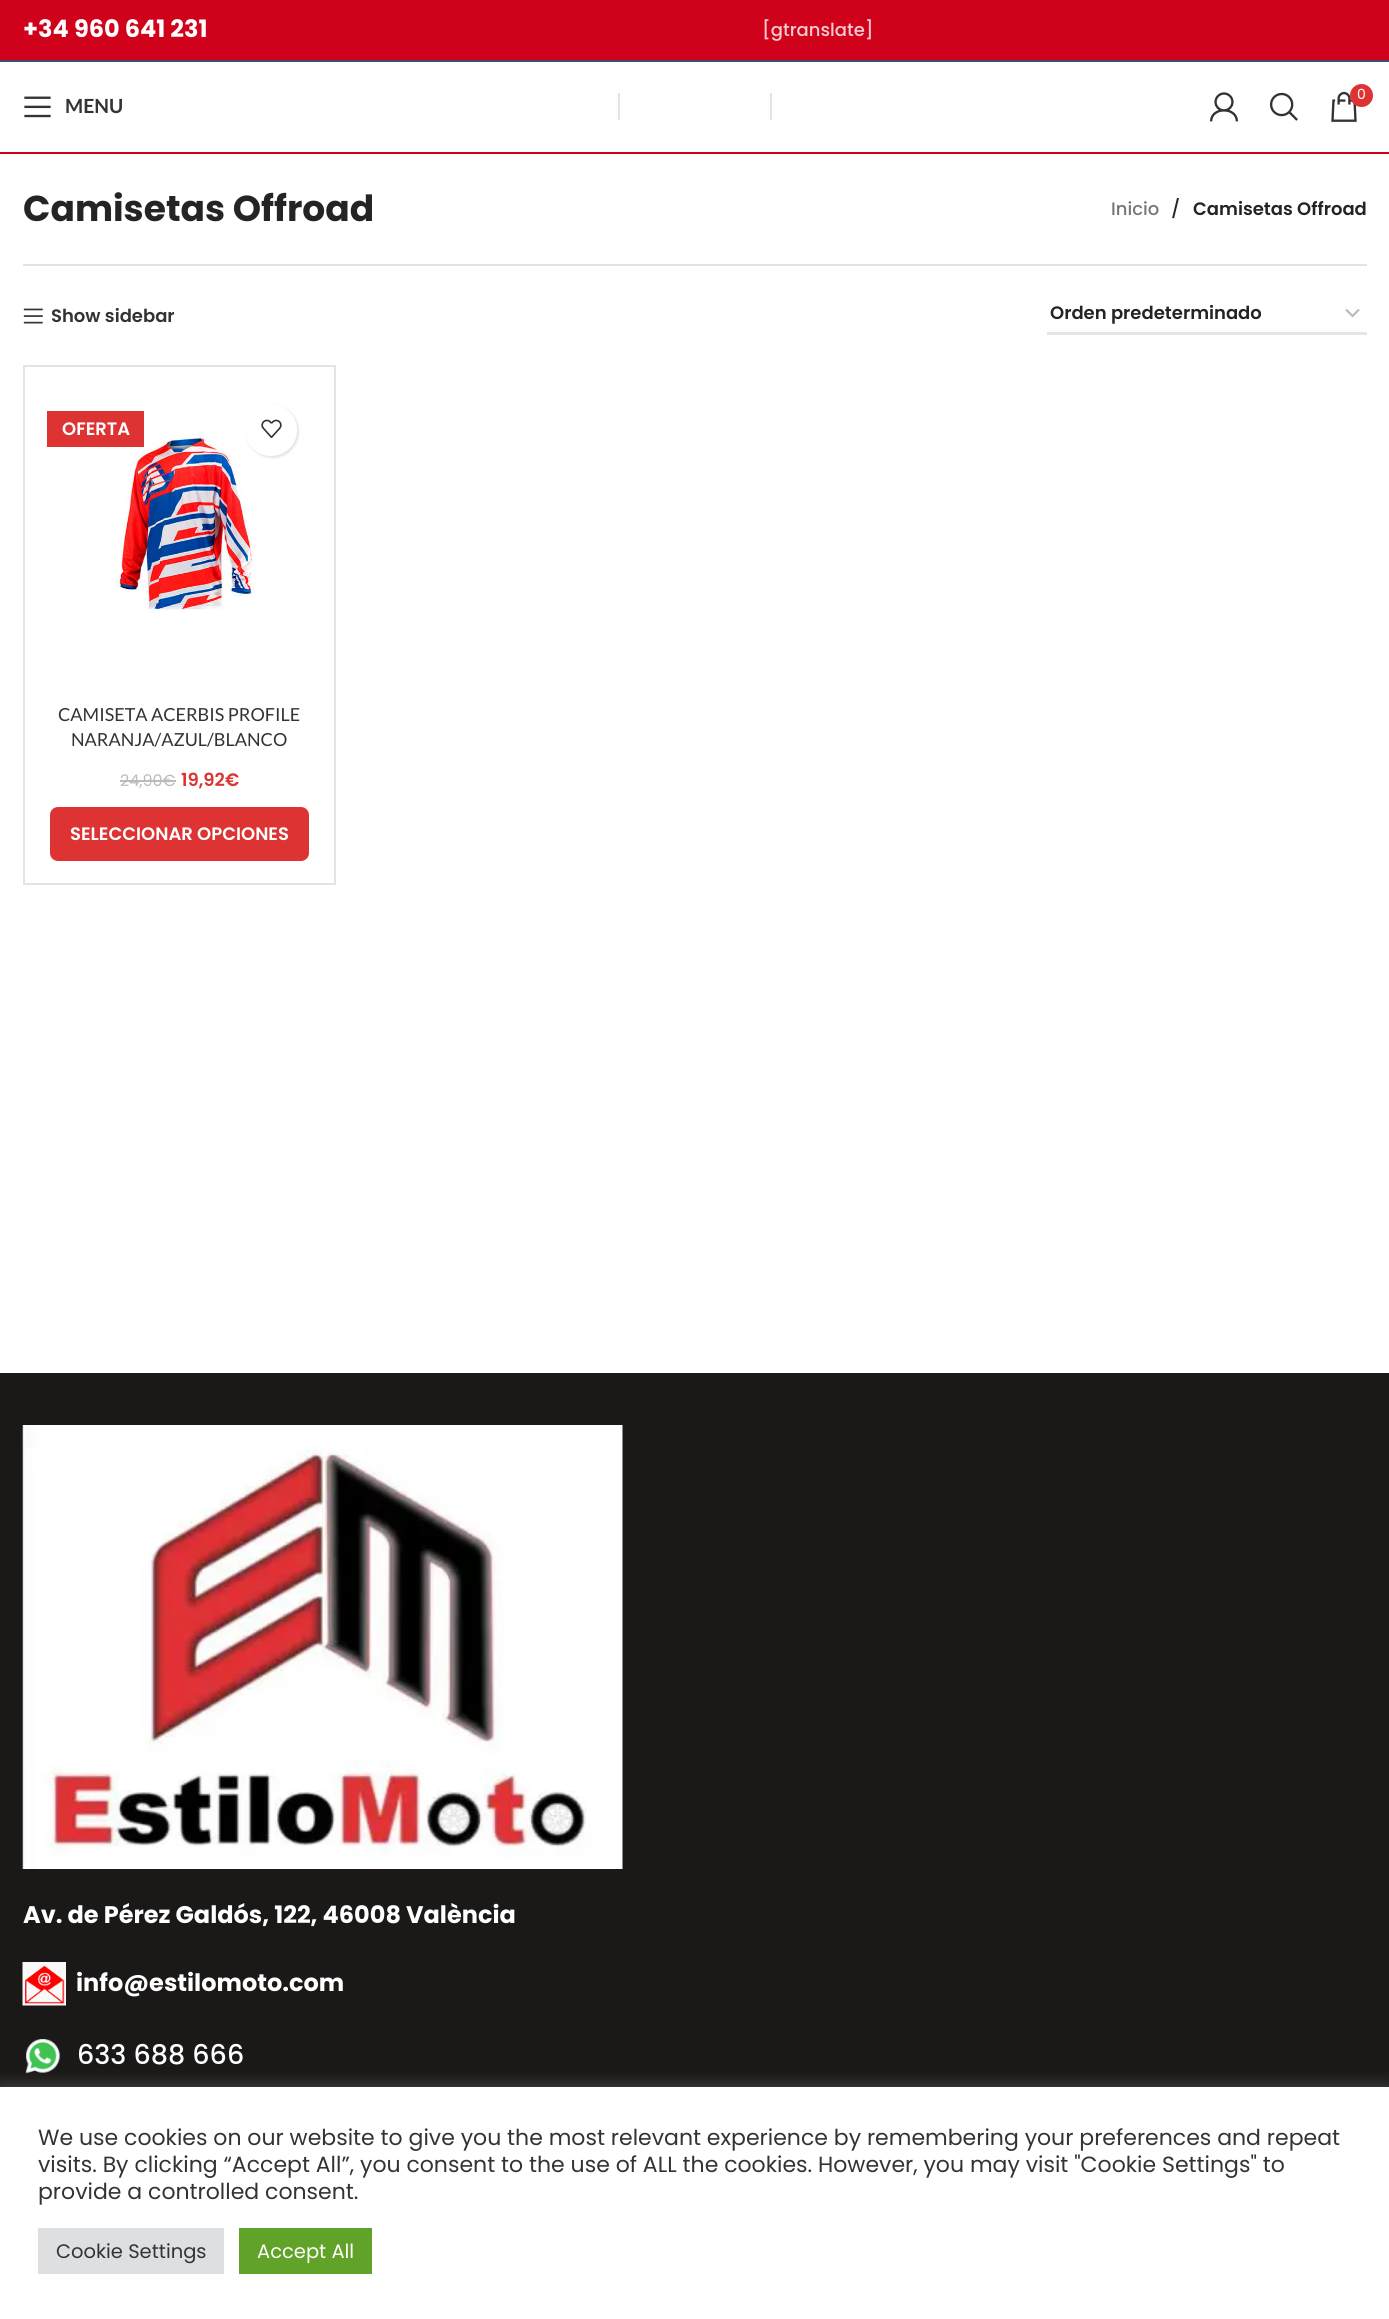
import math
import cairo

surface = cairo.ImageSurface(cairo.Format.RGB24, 1389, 2319)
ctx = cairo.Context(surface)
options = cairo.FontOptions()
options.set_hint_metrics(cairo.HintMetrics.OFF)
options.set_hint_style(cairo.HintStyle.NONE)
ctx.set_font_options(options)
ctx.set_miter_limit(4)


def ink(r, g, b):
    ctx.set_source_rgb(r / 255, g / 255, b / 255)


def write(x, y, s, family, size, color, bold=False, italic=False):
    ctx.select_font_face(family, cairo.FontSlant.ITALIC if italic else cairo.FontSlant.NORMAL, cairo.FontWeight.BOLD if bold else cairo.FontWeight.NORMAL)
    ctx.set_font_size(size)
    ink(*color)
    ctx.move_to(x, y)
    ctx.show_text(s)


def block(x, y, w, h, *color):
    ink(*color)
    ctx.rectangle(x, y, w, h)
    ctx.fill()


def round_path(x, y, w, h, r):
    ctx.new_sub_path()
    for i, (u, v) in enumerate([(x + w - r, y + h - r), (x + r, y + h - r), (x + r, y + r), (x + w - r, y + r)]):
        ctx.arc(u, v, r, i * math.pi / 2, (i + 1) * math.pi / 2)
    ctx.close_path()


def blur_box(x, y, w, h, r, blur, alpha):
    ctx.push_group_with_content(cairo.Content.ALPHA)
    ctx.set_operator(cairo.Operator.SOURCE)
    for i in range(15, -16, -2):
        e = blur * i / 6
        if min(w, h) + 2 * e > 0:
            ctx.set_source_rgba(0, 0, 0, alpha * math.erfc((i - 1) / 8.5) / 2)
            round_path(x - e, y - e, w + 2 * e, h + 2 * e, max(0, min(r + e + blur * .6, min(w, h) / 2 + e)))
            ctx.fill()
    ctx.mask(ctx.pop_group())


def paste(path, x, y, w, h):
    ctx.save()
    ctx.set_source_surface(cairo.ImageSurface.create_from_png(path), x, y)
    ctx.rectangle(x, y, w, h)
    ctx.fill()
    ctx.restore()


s1 = dict(family="Poppins", size=24, color=(255, 255, 255), bold=True)
s2 = dict(family="Poppins Medium", size=18, color=(246, 204, 209))
s3 = dict(family="Lato", size=19.5, color=(51, 51, 51), bold=True)
s4 = dict(family="Poppins", size=14, color=(255, 255, 255))
s5 = dict(family="Poppins", size=36, color=(36, 36, 36), bold=True)
s6 = dict(family="Poppins Medium", size=18, color=(118, 118, 118))
s7 = dict(family="Poppins Medium", size=18, color=(36, 36, 36))
s8 = dict(family="Poppins SemiBold", size=18, color=(36, 36, 36))
s9 = dict(family="Poppins SemiBold", size=18, color=(51, 51, 51))
s10 = dict(family="Poppins SemiBold", size=18, color=(255, 255, 255))
s11 = dict(family="Lato", size=18, color=(51, 51, 51))
s12 = dict(family="Poppins", size=16, color=(187, 187, 187))
s13 = dict(family="Poppins SemiBold", size=18, color=(221, 51, 51))
s14 = dict(family="Poppins Medium", size=27, color=(255, 255, 255))
s15 = dict(family="Poppins", size=22, color=(51, 51, 51))
s16 = dict(family="Poppins", size=19.5, color=(51, 51, 51))
s17 = dict(family="Poppins", size=19.5, color=(255, 255, 255))

ink(255, 255, 255)
ctx.paint()
block(0, 0, 1389, 60, 208, 2, 27)
block(0, 60, 1389, 2, 58, 77, 105)
write(23, 37, "+34 960 641 231", **s1)
write(762, 36, "[gtranslate]", **s2)
block(0, 152, 1389, 2, 208, 2, 27)
paste("pic1.png", 24, 96, 27, 22)
write(65, 113, "MENU", **s3)
block(618, 93, 2, 27, 228, 228, 228)
block(770, 93, 2, 27, 228, 228, 228)
paste("pic2.png", 1210, 92, 28, 30)
paste("pic3.png", 1269, 92, 29, 29)
paste("pic4.png", 1331, 91, 26, 31)
ink(221, 51, 51)
ctx.arc(1361.5, 95.5, 11.5, 0, 2 * math.pi)
ctx.fill()
write(1357, 99, "0", **s4)
block(23, 264, 1344, 2, 228, 228, 228)
write(23, 221, "Camisetas Offroad", **s5)
write(1111, 215, "Inicio", **s6)
write(1171, 215, "/", **s7)
write(1193, 215, "Camisetas Offroad", **s8)
paste("pic5.png", 23, 308, 20, 16)
write(51, 322, "Show sidebar", **s9)
ctx.new_path()
ctx.move_to(1346, 309.5)
ctx.line_to(1352.5, 316)
ctx.line_to(1359, 309.5)
ink(187, 187, 187)
ctx.set_line_width(2.2)
ctx.stroke()
block(1047, 332, 320, 3, 230, 230, 230)
write(1050, 319, "Orden predeterminado", **s8)
ctx.rectangle(24, 366, 311, 518)
ink(228, 228, 228)
ctx.set_line_width(2)
ctx.stroke()
paste("pic6.png", 116, 436, 140, 175)
block(47, 411, 97, 36, 221, 51, 51)
write(62, 435, "OFERTA", **s10)
ink(0, 0, 0)
blur_box(246, 405, 53, 53, 26.5, 1, 0.1)
ink(255, 255, 255)
ctx.arc(271, 430, 26, 0, 2 * math.pi)
ctx.fill()
paste("pic7.png", 261, 419, 21, 19)
write(58, 721, "CAMISETA ACERBIS PROFILE", **s11)
write(71, 746, "NARANJA/AZUL/BLANCO", **s11)
write(120, 786, "24,90€", **s12)
block(120, 780, 56, 2, 187, 187, 187)
write(181, 786, "19,92€", **s13)
round_path(50, 807, 259, 54, 8)
ctx.fill()
write(70, 840, "SELECCIONAR OPCIONES", **s10)
block(0, 1373, 1389, 714, 27, 24, 24)
paste("pic8.png", 22, 1425, 601, 444)
write(23, 1923, "Av. de Pérez Galdós, 122, 46008 València", **s1)
paste("pic9.png", 22, 1962, 44, 44)
write(76, 1991, "info@estilomoto.com", **s1)
paste("pic10.png", 25, 2039, 35, 35)
write(77, 2064, "633 688 666", **s14)
ink(172, 171, 171)
blur_box(0, 2085, 1389, 233, 0, 7.5, 0.3)
block(0, 2087, 1389, 232, 255, 255, 255)
write(38, 2145, "We use cookies on our website to give you the most relevant experience by remembering your preferences and repeat", **s15)
write(38, 2172, "visits. By clicking “Accept All”, you consent to the use of ALL the cookies. However, you may visit \"Cookie Settings\" to", **s15)
write(38, 2199, "provide a controlled consent.", **s15)
block(38, 2228, 186, 46, 222, 223, 224)
write(56, 2258, "Cookie Settings", **s16)
block(239, 2228, 133, 46, 97, 162, 41)
write(257, 2258, "Accept All", **s17)
surface.write_to_png("screenshot.png")
